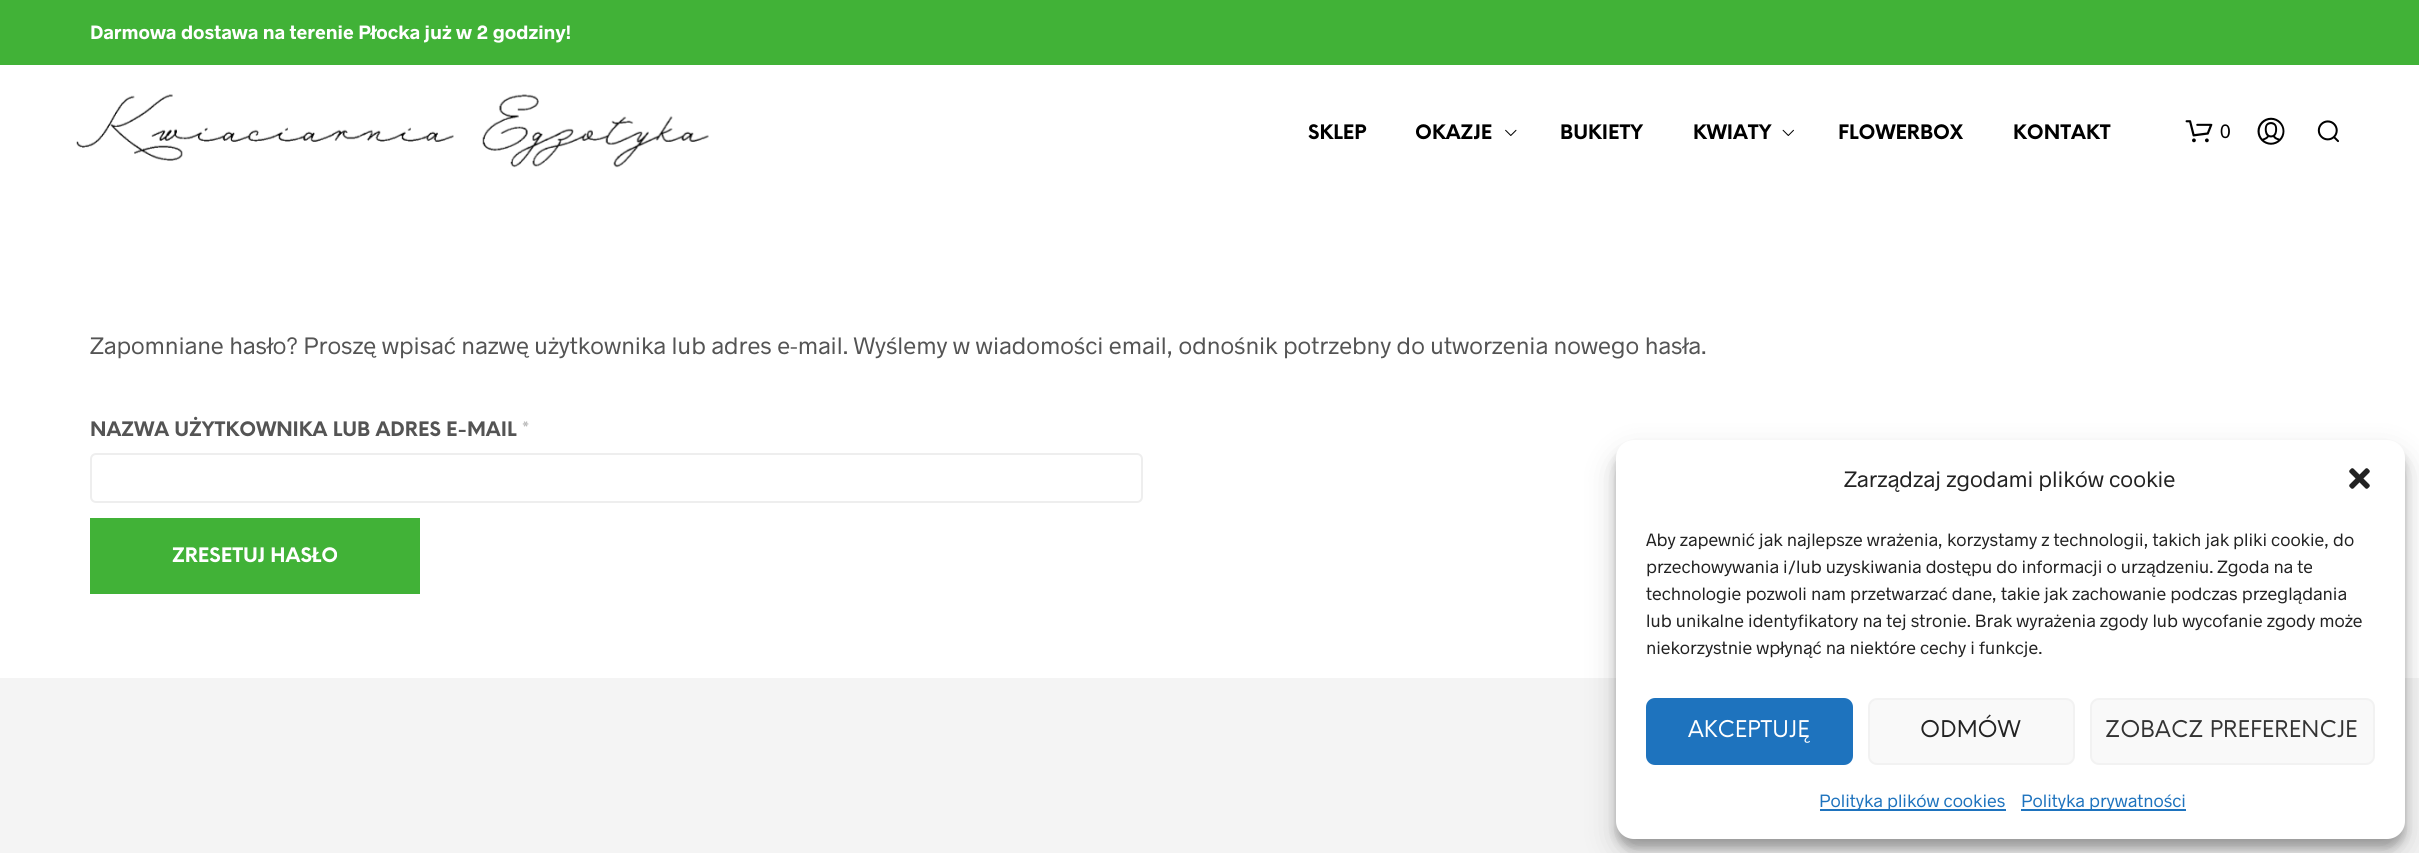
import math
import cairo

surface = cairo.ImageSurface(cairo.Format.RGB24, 2419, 853)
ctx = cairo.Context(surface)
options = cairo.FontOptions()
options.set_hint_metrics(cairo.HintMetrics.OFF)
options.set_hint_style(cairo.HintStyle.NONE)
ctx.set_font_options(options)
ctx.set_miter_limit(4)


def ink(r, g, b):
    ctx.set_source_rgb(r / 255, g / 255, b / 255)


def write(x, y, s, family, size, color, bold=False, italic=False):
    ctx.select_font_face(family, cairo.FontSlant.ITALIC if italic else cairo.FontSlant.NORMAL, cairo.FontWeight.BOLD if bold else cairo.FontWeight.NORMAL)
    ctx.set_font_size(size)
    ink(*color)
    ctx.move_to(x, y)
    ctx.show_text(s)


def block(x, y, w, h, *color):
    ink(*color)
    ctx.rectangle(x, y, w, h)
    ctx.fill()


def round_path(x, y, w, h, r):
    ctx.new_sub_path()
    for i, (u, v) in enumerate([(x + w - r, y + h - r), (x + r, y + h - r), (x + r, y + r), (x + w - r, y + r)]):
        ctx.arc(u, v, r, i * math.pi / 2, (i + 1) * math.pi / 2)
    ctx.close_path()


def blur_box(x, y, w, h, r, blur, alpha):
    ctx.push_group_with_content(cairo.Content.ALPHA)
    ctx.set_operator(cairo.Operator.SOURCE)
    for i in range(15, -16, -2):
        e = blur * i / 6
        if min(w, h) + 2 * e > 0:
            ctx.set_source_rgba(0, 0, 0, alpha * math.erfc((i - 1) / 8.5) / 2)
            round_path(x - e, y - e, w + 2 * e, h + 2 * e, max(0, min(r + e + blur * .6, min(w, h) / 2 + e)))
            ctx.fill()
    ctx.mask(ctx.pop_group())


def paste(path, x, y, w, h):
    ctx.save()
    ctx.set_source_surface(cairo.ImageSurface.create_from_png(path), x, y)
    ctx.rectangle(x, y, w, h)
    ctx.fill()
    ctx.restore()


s1 = dict(family="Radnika", size=19.5, color=(255, 255, 255), bold=True)
s2 = dict(family="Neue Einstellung", size=19.5, color=(0, 0, 0), bold=True)
s3 = dict(family="Radnika", size=19.5, color=(0, 0, 0))
s4 = dict(family="Radnika", size=24, color=(84, 84, 84))
s5 = dict(family="Neue Einstellung", size=19.5, color=(84, 84, 84), bold=True)
s6 = dict(family="Neue Einstellung", size=19.5, color=(187, 187, 187), bold=True)
s7 = dict(family="Neue Einstellung", size=19.5, color=(255, 255, 255), bold=True)
s8 = dict(family="Radnika", size=22.5, color=(34, 34, 34))
s9 = dict(family="Radnika", size=18, color=(34, 34, 34))
s10 = dict(family="Neue Einstellung", size=22.5, color=(255, 255, 255))
s11 = dict(family="Neue Einstellung", size=22.5, color=(34, 34, 34))
s12 = dict(family="Neue Einstellung", size=22.5, color=(51, 51, 51))
s13 = dict(family="Radnika", size=18, color=(30, 115, 190))

ink(255, 255, 255)
ctx.paint()
block(0, 0, 2419, 65, 65, 178, 55)
write(90, 39, "Darmowa dostawa na terenie Płocka już w 2 godziny!", **s1)
paste("pic1.png", 76, 94, 633, 74)
write(1308, 139, "SKLEP", **s2)
write(1415, 139, "OKAZJE", **s2)
paste("pic2.png", 1505, 129, 12, 7)
write(1560, 139, "BUKIETY", **s2)
write(1693, 139, "KWIATY", **s2)
paste("pic3.png", 1782, 129, 12, 7)
write(1838, 139, "FLOWERBOX", **s2)
write(2013, 139, "KONTAKT", **s2)
paste("pic4.png", 2185, 120, 28, 23)
write(2220, 138, "0", **s3)
paste("pic5.png", 2257, 117, 28, 28)
paste("pic6.png", 2317, 120, 22, 23)
write(90, 354, "Zapomniane hasło? Proszę wpisać nazwę użytkownika lub adres e-mail. Wyślemy w wiadomości email, odnośnik potrzebny do utworzenia nowego hasła.", **s4)
write(90, 436, "NAZWA UŻYTKOWNIKA LUB ADRES E-MAIL", **s5)
write(522, 436, "*", **s6)
round_path(91, 454, 1051, 48, 5)
ink(238, 238, 238)
ctx.stroke()
block(90, 518, 330, 76, 65, 178, 55)
write(172, 562, "ZRESETUJ HASŁO", **s7)
block(0, 678, 2419, 175, 244, 244, 244)
ink(0, 0, 0)
blur_box(1616, 449, 789, 399, 18, 4.5, 0.23)
blur_box(1616, 455, 789, 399, 18, 15, 0.19)
ink(255, 255, 255)
round_path(1616, 440, 789, 399, 18)
ctx.fill()
write(1844, 487, "Zarządzaj zgodami plików cookie", **s8)
paste("pic7.png", 2349, 468, 21, 21)
write(1646, 546, "Aby zapewnić jak najlepsze wrażenia, korzystamy z technologii, takich jak pliki cookie, do", **s9)
write(1646, 573, "przechowywania i/lub uzyskiwania dostępu do informacji o urządzeniu. Zgoda na te", **s9)
write(1646, 600, "technologie pozwoli nam przetwarzać dane, takie jak zachowanie podczas przeglądania", **s9)
write(1646, 627, "lub unikalne identyfikatory na tej stronie. Brak wyrażenia zgody lub wycofanie zgody może", **s9)
write(1646, 654, "niekorzystnie wpłynąć na niektóre cechy i funkcje.", **s9)
ink(30, 115, 190)
round_path(1647, 699, 205, 65, 8)
ctx.fill_preserve()
ctx.stroke()
write(1688, 737, "AKCEPTUJĘ", **s10)
ink(249, 249, 249)
round_path(1869, 699, 205, 65, 8)
ctx.fill_preserve()
ink(242, 242, 242)
ctx.stroke()
write(1920, 737, "ODMÓW", **s11)
ink(249, 249, 249)
round_path(2091, 699, 283, 65, 8)
ctx.fill_preserve()
ink(242, 242, 242)
ctx.stroke()
write(2105, 737, "ZOBACZ PREFERENCJE", **s12)
block(1820, 809, 186, 2, 30, 115, 190)
write(1819, 807, "Polityka plików cookies", **s13)
block(2021, 809, 165, 2, 30, 115, 190)
write(2021, 807, "Polityka prywatności", **s13)
surface.write_to_png("screenshot.png")
